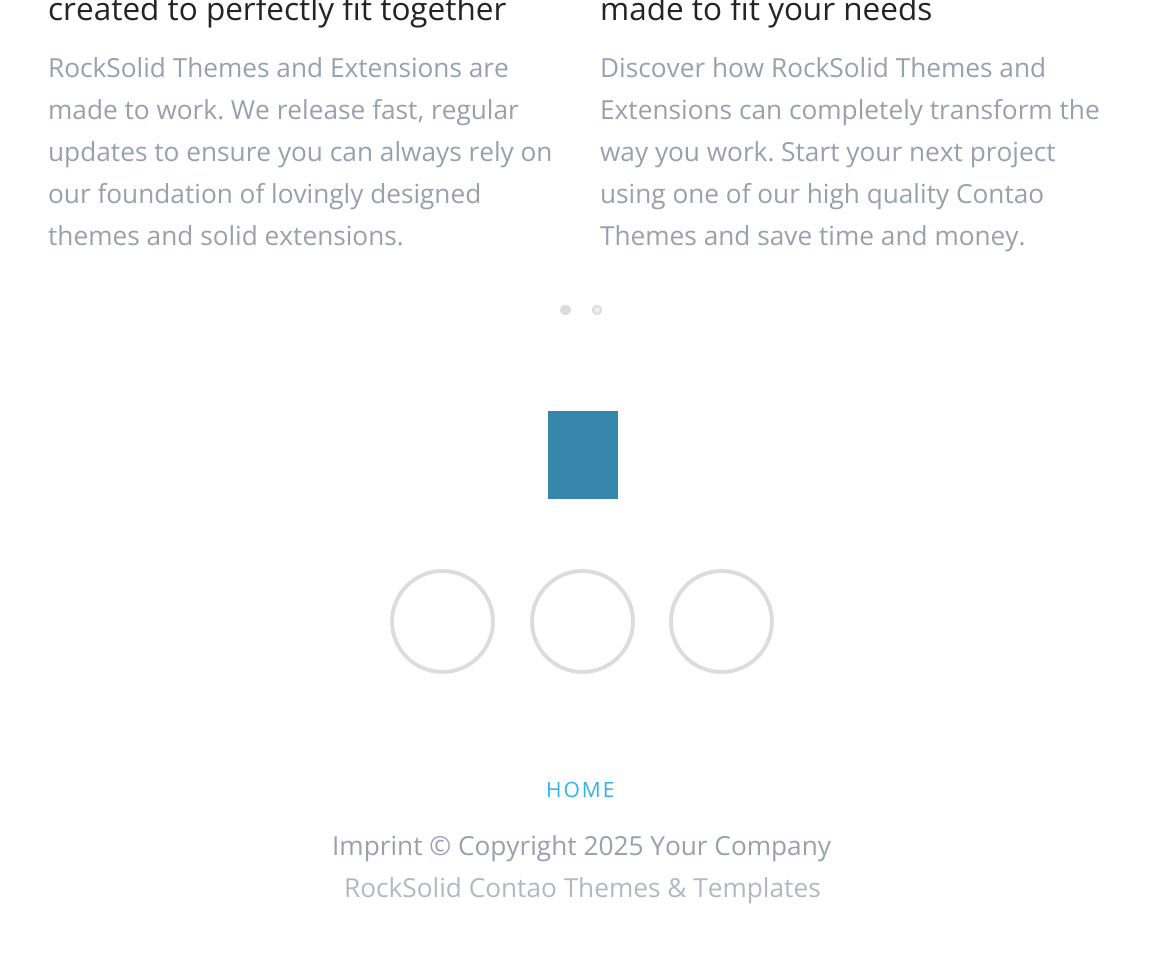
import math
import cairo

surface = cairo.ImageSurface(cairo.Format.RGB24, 1163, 975)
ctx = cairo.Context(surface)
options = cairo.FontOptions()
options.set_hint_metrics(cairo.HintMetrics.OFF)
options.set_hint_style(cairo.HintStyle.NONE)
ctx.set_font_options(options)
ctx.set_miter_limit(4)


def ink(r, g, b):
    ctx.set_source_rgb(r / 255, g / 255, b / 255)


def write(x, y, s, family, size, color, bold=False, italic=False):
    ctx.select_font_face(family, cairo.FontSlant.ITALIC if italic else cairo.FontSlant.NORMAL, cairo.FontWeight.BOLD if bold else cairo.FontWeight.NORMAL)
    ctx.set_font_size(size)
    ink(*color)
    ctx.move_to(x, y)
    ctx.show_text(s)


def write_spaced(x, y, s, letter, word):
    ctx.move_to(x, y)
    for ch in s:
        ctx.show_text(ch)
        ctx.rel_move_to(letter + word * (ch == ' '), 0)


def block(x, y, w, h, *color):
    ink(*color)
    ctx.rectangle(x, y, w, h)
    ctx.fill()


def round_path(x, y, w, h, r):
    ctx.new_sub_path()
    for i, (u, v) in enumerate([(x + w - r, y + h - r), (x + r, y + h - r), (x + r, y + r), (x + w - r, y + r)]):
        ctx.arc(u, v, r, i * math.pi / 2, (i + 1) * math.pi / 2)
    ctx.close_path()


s1 = dict(family="Open Sans", size=31.5, color=(36, 36, 36))
s2 = dict(family="Open Sans", size=26.25, color=(152, 160, 171))
s3 = dict(family="Open Sans", size=26.25, color=(178, 184, 192))

ink(255, 255, 255)
ctx.paint()
write(48, 20, "created to perfectly fit together", **s1)
write(48, 77, "RockSolid Themes and Extensions are", **s2)
write(48, 119, "made to work. We release fast, regular", **s2)
write(48, 161, "updates to ensure you can always rely on", **s2)
write(48, 203, "our foundation of lovingly designed", **s2)
write(48, 245, "themes and solid extensions.", **s2)
write(600, 20, "made to fit your needs", **s1)
write(600, 77, "Discover how RockSolid Themes and", **s2)
write(600, 119, "Extensions can completely transform the", **s2)
write(600, 161, "way you work. Start your next project", **s2)
write(600, 203, "using one of our high quality Contao", **s2)
write(600, 245, "Themes and save time and money.", **s2)
ink(220, 220, 220)
round_path(561, 306, 9, 8, 4)
ctx.fill_preserve()
ctx.stroke()
ink(238, 238, 238)
ctx.arc(597, 310, 4, 0, 2 * math.pi)
ctx.fill_preserve()
ink(220, 220, 220)
ctx.stroke()
block(548, 411, 70, 88, 54, 133, 171)
ctx.arc(442.5, 621.5, 50.5, 0, 2 * math.pi)
ink(220, 220, 220)
ctx.set_line_width(4)
ctx.stroke()
ctx.arc(582.5, 621.5, 50.5, 0, 2 * math.pi)
ctx.stroke()
ctx.arc(721.5, 621.5, 50.5, 0, 2 * math.pi)
ctx.stroke()
ctx.set_font_size(21)
ink(51, 177, 236)
write_spaced(546, 797, "HOME", 2, 0)
write(332, 855, "Imprint © Copyright 2025 Your Company", **s2)
write(344, 897, "RockSolid Contao Themes & Templates", **s3)
surface.write_to_png("screenshot.png")
